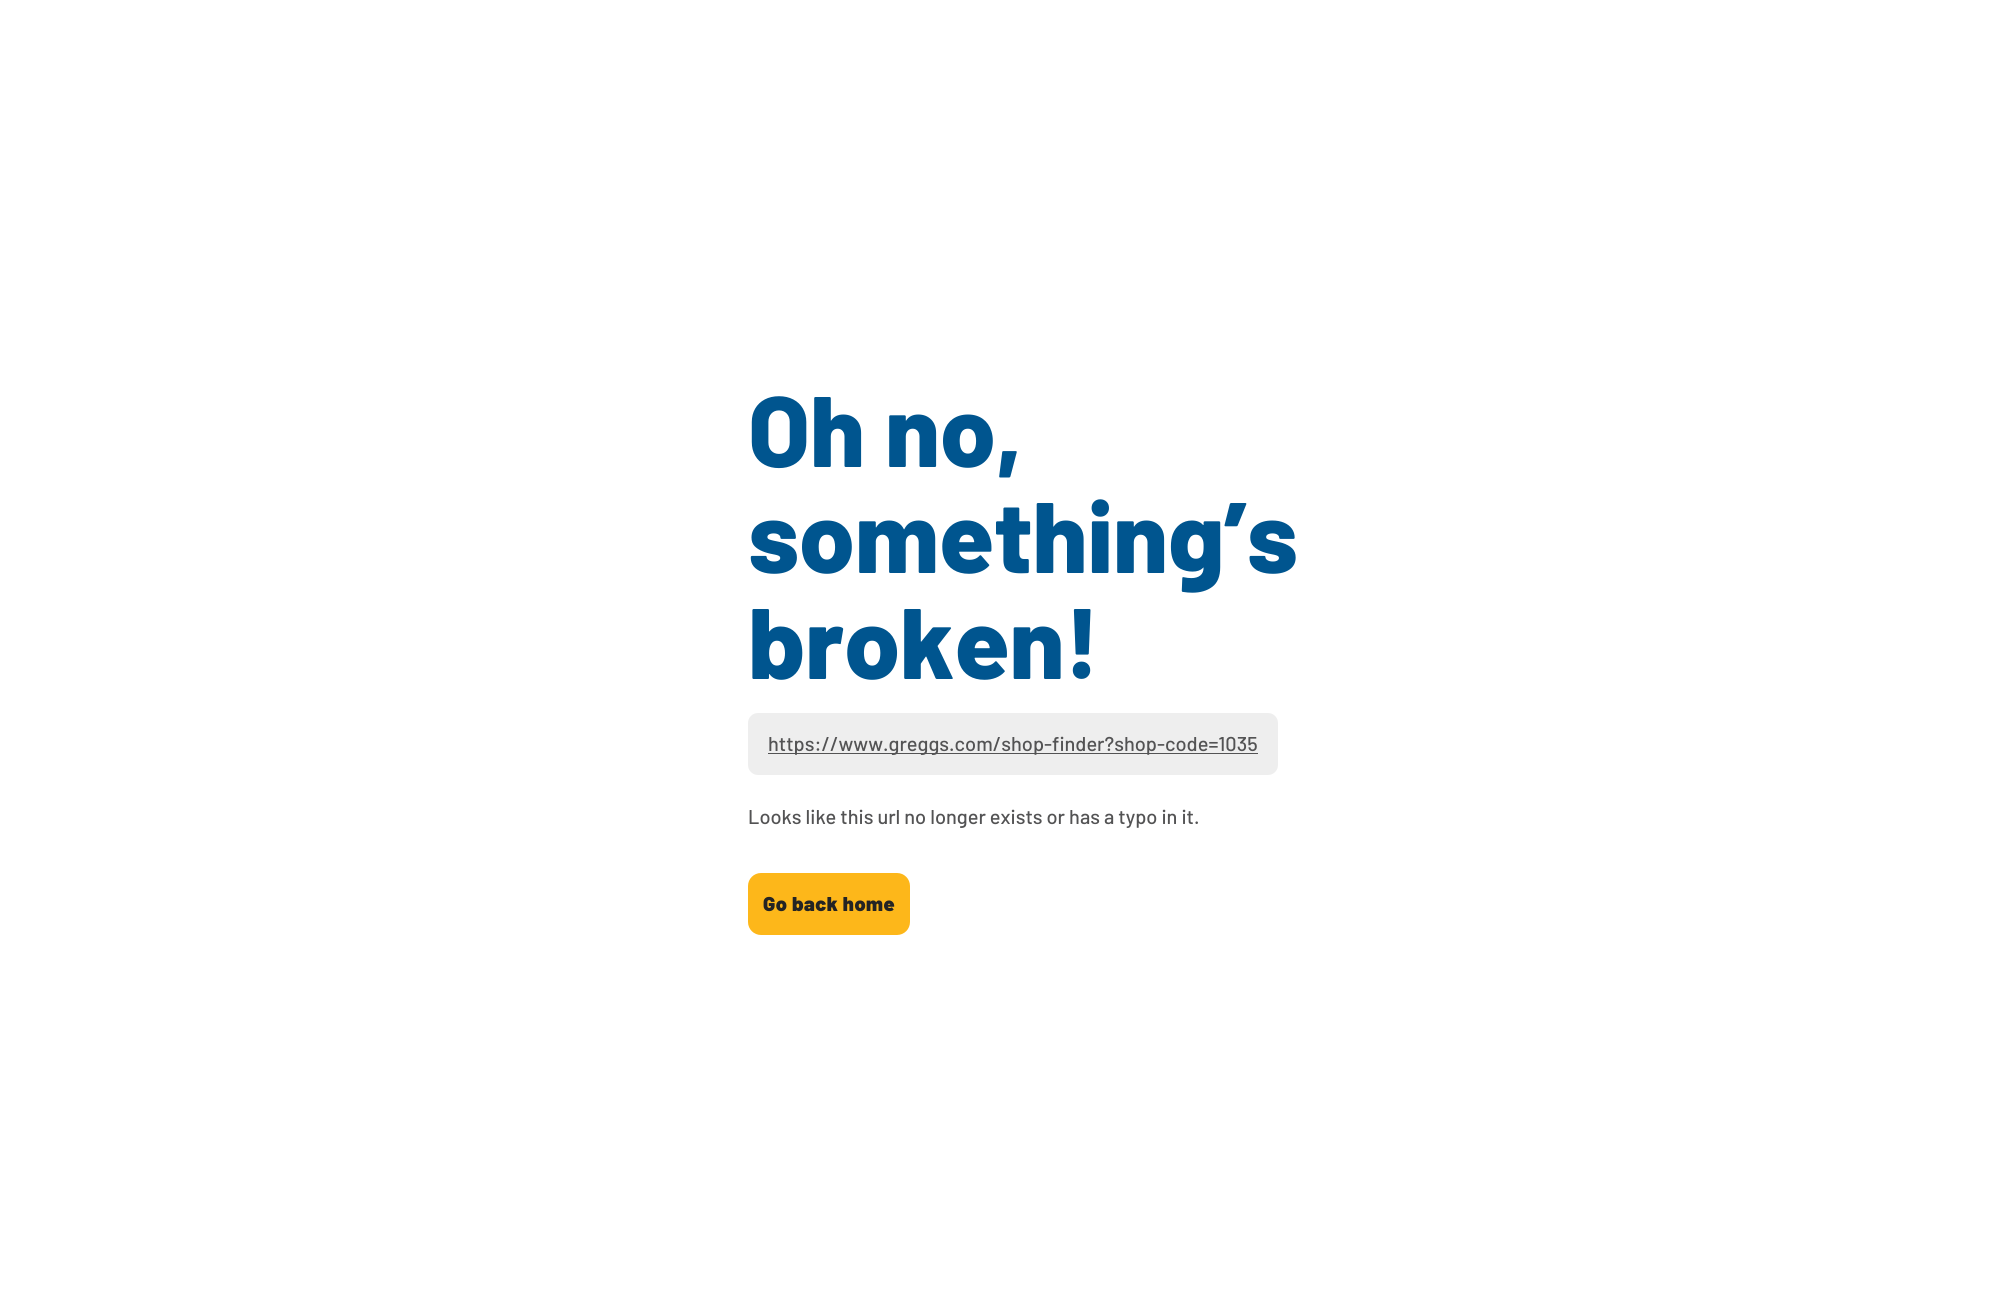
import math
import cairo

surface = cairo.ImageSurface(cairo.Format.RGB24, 2016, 1310)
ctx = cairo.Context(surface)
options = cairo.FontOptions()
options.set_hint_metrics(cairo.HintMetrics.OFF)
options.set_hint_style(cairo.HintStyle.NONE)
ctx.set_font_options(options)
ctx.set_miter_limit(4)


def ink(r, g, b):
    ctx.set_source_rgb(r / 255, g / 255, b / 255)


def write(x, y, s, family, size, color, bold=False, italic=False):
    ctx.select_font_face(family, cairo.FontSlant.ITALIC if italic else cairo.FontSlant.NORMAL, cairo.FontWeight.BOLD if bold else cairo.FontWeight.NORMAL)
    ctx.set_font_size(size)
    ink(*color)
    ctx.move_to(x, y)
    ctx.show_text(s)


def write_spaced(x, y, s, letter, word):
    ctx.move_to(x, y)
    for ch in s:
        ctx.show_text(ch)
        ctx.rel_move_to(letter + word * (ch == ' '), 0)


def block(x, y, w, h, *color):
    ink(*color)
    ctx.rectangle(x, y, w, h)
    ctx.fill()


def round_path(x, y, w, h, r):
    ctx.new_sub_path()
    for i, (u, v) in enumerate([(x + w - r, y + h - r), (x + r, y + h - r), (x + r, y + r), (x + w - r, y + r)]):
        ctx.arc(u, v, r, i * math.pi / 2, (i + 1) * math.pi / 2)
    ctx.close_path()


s1 = dict(family="Barlow ExtraBold", size=100, color=(0, 85, 143))
s2 = dict(family="Barlow Medium", size=20, color=(83, 83, 84))

ink(255, 255, 255)
ctx.paint()
write(748, 467, "Oh no,", **s1)
write(748, 573, "something’s", **s1)
write(748, 679, "broken!", **s1)
ink(238, 238, 238)
round_path(748, 713, 530, 62, 10)
ctx.fill()
block(768, 753, 490, 1, 83, 83, 84)
write(768, 751, "https://www.greggs.com/shop-finder?shop-code=1035", **s2)
write(748, 824, "Looks like this url no longer exists or has a typo in it.", **s2)
ink(253, 183, 26)
round_path(748, 873, 162, 62, 13)
ctx.fill()
ctx.select_font_face("Barlow Black")
ink(36, 36, 36)
write_spaced(763, 911, "Go back home", 0.5, 0)
surface.write_to_png("screenshot.png")
